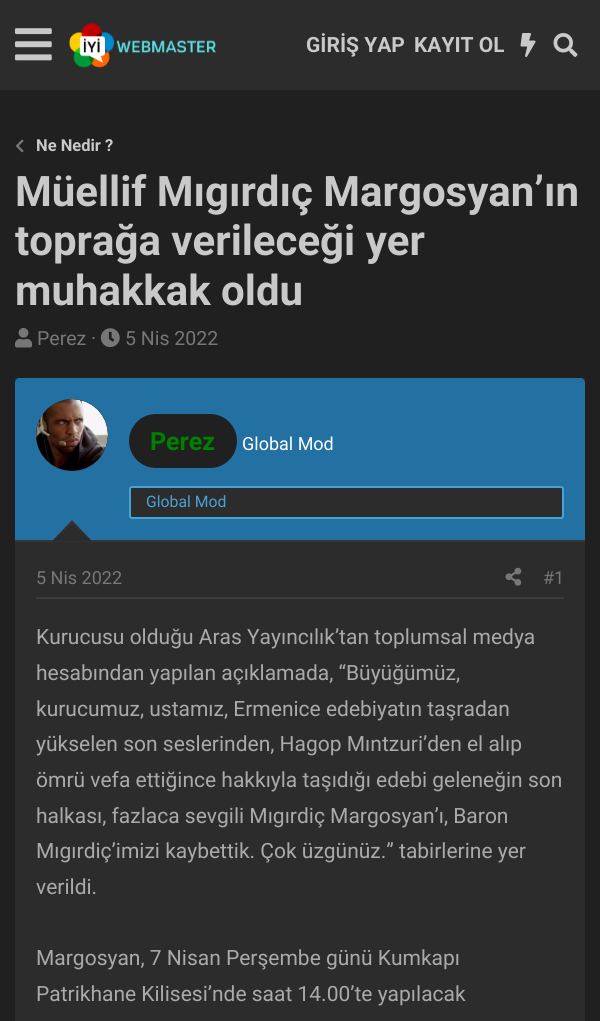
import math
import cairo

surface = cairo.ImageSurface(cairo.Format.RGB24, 600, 1021)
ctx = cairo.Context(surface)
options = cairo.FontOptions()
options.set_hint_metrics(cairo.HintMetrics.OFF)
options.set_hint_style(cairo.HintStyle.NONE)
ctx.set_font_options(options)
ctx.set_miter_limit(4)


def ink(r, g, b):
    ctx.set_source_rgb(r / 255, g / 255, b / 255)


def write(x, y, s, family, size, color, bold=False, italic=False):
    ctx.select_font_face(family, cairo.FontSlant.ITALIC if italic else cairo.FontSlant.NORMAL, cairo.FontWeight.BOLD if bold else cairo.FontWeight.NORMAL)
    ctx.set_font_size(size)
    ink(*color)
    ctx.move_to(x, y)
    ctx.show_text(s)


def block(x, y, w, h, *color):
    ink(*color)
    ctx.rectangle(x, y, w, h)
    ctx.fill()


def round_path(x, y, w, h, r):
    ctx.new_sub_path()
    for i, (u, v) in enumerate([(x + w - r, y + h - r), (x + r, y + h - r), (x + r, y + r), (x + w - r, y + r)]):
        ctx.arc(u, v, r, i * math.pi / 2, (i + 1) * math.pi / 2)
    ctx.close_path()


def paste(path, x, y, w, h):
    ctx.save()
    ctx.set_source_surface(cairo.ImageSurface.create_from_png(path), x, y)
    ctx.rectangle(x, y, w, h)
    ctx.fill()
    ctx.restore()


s1 = dict(family="Roboto", size=21, color=(201, 201, 201), bold=True)
s2 = dict(family="Roboto", size=16.5, color=(201, 201, 201), bold=True)
s3 = dict(family="Roboto", size=42, color=(201, 201, 201), bold=True)
s4 = dict(family="Roboto", size=19.5, color=(119, 119, 119))
s5 = dict(family="Roboto", size=25, color=(0, 128, 0), bold=True)
s6 = dict(family="Roboto", size=18, color=(255, 255, 255))
s7 = dict(family="Roboto", size=15.75, color=(73, 161, 216))
s8 = dict(family="Roboto", size=18, color=(119, 119, 119))
s9 = dict(family="Roboto", size=21, color=(170, 170, 170))

ink(32, 32, 32)
ctx.paint()
block(0, 0, 600, 90, 44, 44, 44)
paste("pic1.png", 15, 28, 37, 33)
paste("pic2.png", 69, 23, 147, 45)
write(306, 52, "GİRİŞ YAP", **s1)
write(414, 52, "KAYIT OL", **s1)
paste("pic3.png", 520, 33, 16, 24)
paste("pic4.png", 553, 33, 25, 24)
paste("pic5.png", 15, 139, 9, 14)
write(36, 151, "Ne Nedir ?", **s2)
write(15, 206, "Müellif Mıgırdıç Margosyan’ın", **s3)
write(15, 255, "toprağa verileceği yer", **s3)
write(15, 305, "muhakkak oldu", **s3)
paste("pic6.png", 15, 328, 18, 20)
write(37, 345, "Perez ·", **s4)
paste("pic7.png", 100, 328, 20, 20)
write(125, 345, "5 Nis 2022", **s4)
block(15, 378, 570, 643, 44, 44, 44)
ink(35, 113, 162)
ctx.new_path()
ctx.move_to(20, 378)
ctx.line_to(580, 378)
ctx.curve_to(583, 378, 585, 380, 585, 383)
ctx.line_to(585, 542)
ctx.line_to(15, 542)
ctx.line_to(15, 383)
ctx.curve_to(15, 380, 17, 378, 20, 378)
ctx.close_path()
ctx.fill()
block(15, 540, 570, 2, 54, 54, 54)
ink(44, 44, 44)
ctx.arc(72, 435, 36, 0, 2 * math.pi)
ctx.fill()
paste("pic8.png", 36, 399, 72, 72)
ink(32, 32, 32)
round_path(129, 414, 108, 54, 27)
ctx.fill()
write(150, 450, "Perez", **s5)
write(242, 450, "Global Mod", **s6)
ink(44, 44, 44)
round_path(130, 487, 433, 31, 2)
ctx.fill_preserve()
ink(73, 161, 216)
ctx.stroke()
write(146, 507, "Global Mod", **s7)
ink(54, 54, 54)
ctx.new_path()
ctx.move_to(93, 542)
ctx.line_to(51, 542)
ctx.line_to(72, 520)
ctx.close_path()
ctx.fill()
ink(44, 44, 44)
ctx.new_path()
ctx.move_to(91.5, 541.5)
ctx.line_to(52.5, 541.5)
ctx.line_to(72, 522)
ctx.close_path()
ctx.fill()
block(36, 597, 528, 2, 59, 59, 59)
write(36, 584, "5 Nis 2022", **s8)
paste("pic9.png", 505, 567, 17, 19)
write(543, 584, "#1", **s8)
write(36, 644, "Kurucusu olduğu Aras Yayıncılık’tan toplumsal medya", **s9)
write(36, 680, "hesabından yapılan açıklamada, “Büyüğümüz,", **s9)
write(36, 716, "kurucumuz, ustamız, Ermenice edebiyatın taşradan", **s9)
write(36, 751, "yükselen son seslerinden, Hagop Mıntzuri’den el alıp", **s9)
write(36, 787, "ömrü vefa ettiğince hakkıyla taşıdığı edebi geleneğin son", **s9)
write(36, 823, "halkası, fazlaca sevgili Mıgırdiç Margosyan’ı, Baron", **s9)
write(36, 858, "Mıgırdiç’imizi kaybettik. Çok üzgünüz.” tabirlerine yer", **s9)
write(36, 894, "verildi.", **s9)
write(36, 965, "Margosyan, 7 Nisan Perşembe günü Kumkapı", **s9)
write(36, 1001, "Patrikhane Kilisesi’nde saat 14.00’te yapılacak", **s9)
surface.write_to_png("screenshot.png")
